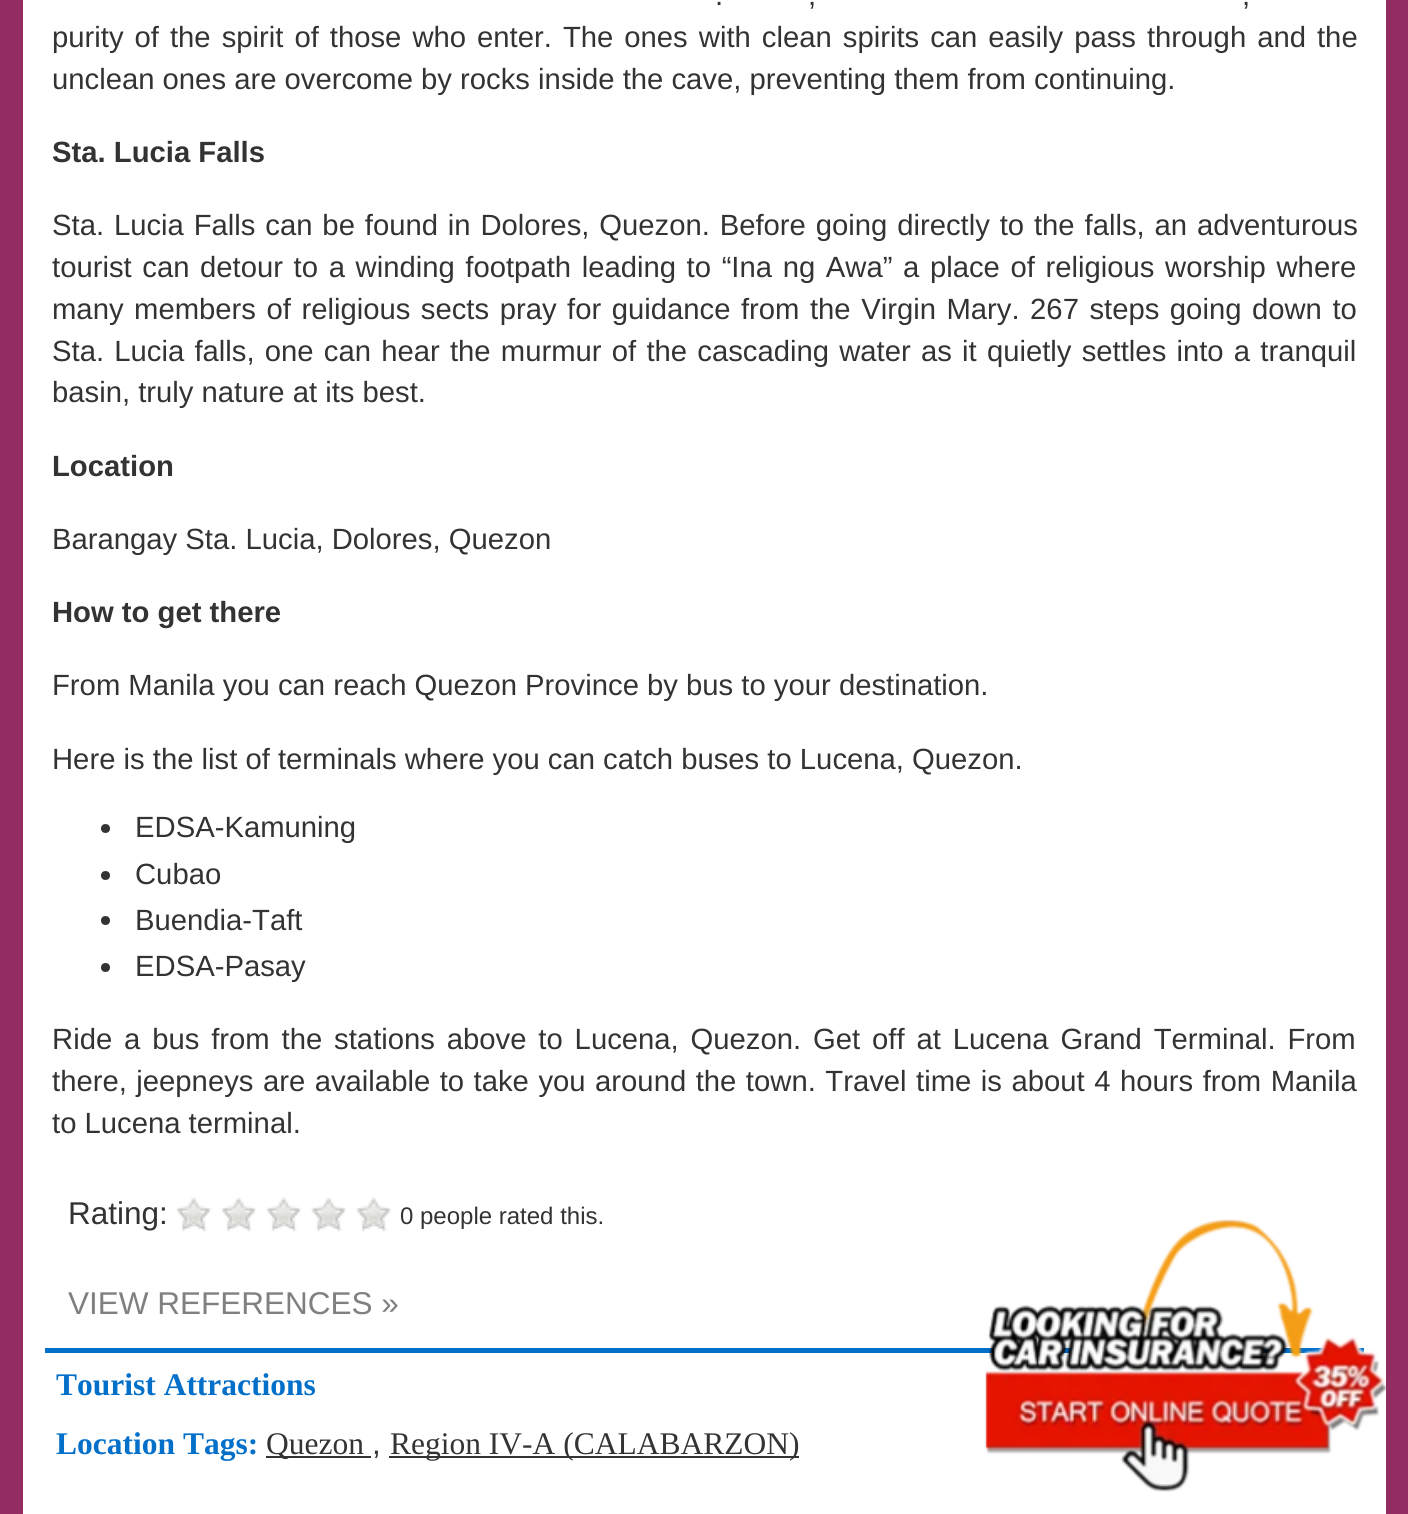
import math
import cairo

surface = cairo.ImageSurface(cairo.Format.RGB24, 1408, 1514)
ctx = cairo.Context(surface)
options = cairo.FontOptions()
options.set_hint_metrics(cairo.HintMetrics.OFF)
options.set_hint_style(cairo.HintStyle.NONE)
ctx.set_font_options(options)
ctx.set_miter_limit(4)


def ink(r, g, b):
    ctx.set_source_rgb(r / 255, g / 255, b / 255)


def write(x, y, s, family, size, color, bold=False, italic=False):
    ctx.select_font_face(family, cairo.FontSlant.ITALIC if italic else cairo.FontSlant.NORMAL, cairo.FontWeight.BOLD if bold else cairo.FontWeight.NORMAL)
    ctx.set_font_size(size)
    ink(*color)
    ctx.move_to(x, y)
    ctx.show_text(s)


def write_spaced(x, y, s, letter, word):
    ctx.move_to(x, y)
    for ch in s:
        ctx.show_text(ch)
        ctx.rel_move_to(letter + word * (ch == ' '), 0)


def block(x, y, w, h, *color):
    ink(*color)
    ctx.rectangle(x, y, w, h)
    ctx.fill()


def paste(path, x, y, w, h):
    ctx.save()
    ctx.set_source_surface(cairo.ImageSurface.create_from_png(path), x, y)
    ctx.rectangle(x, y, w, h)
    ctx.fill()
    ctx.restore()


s1 = dict(family="Liberation Sans", size=29.25, color=(51, 51, 51))
s2 = dict(family="Liberation Sans", size=29.25, color=(51, 51, 51), bold=True)
s3 = dict(family="Liberation Sans", size=31.5, color=(51, 51, 51))
s4 = dict(family="Liberation Sans", size=24, color=(51, 51, 51))
s5 = dict(family="Liberation Sans", size=31.5, color=(128, 128, 128))
s6 = dict(family="Liberation Serif", size=31.5, color=(2, 111, 201), bold=True)
s7 = dict(family="Liberation Serif", size=31.5, color=(51, 51, 51))

ink(147, 44, 98)
ctx.paint()
block(23, 0, 1363, 1514, 255, 255, 255)
ctx.select_font_face("Liberation Sans")
ctx.set_font_size(29.25)
ink(51, 51, 51)
write_spaced(715, 5, ".", 0, 1)
write_spaced(808, 5, ",", 0, 1)
write_spaced(1242, 5, ",", 0, 1)
write_spaced(52, 47, "purity of the spirit of those who enter. The ones with clean spirits can easily pass through and the", 0, 2.9)
write(52, 89, "unclean ones are overcome by rocks inside the cave, preventing them from continuing.", **s1)
write(52, 162, "Sta. Lucia Falls", **s2)
ctx.select_font_face("Liberation Sans")
write_spaced(52, 235, "Sta. Lucia Falls can be found in Dolores, Quezon. Before going directly to the falls, an adventurous", 0, 1.75)
write_spaced(52, 277, "tourist can detour to a winding footpath leading to “Ina ng Awa” a place of religious worship where", 0, 2.5)
write_spaced(52, 319, "many members of religious sects pray for guidance from the Virgin Mary. 267 steps going down to", 0, 2.4)
write_spaced(52, 361, "Sta. Lucia falls, one can hear the murmur of the cascading water as it quietly settles into a tranquil", 0, 2.1)
write(52, 402, "basin, truly nature at its best.", **s1)
write(52, 476, "Location", **s2)
write(52, 549, "Barangay Sta. Lucia, Dolores, Quezon", **s1)
write(52, 622, "How to get there", **s2)
write(52, 695, "From Manila you can reach Quezon Province by bus to your destination.", **s1)
write(52, 769, "Here is the list of terminals where you can catch buses to Lucena, Quezon.", **s1)
ctx.new_path()
ctx.arc(105.5, 828.5, 4.5, 0, 2 * math.pi)
ctx.fill()
write(135, 837, "EDSA-Kamuning", **s1)
ctx.new_path()
ctx.arc(105.5, 875.5, 4.5, 0, 2 * math.pi)
ctx.fill()
write(135, 884, "Cubao", **s1)
ctx.new_path()
ctx.arc(105.5, 920.5, 4.5, 0, 2 * math.pi)
ctx.fill()
write(135, 930, "Buendia-Taft", **s1)
ctx.new_path()
ctx.arc(105.5, 967.5, 4.5, 0, 2 * math.pi)
ctx.fill()
write(135, 976, "EDSA-Pasay", **s1)
write_spaced(52, 1049, "Ride a bus from the stations above to Lucena, Quezon. Get off at Lucena Grand Terminal. From", 0, 3.75)
write_spaced(52, 1091, "there, jeepneys are available to take you around the town. Travel time is about 4 hours from Manila", 0, 1.4)
write(52, 1133, "to Lucena terminal.", **s1)
write(68, 1224, "Rating:", **s3)
paste("pic1.png", 175, 1197, 37, 35)
paste("pic1.png", 220, 1197, 37, 35)
paste("pic2.png", 265, 1197, 37, 35)
paste("pic2.png", 310, 1197, 37, 35)
paste("pic2.png", 355, 1197, 37, 35)
write(400, 1224, "0 people rated this.", **s4)
write(68, 1314, "VIEW REFERENCES »", **s5)
block(45, 1348, 1319, 5, 2, 111, 201)
write(56, 1395, "Tourist Attractions", **s6)
write(56, 1454, "Location Tags:", **s6)
block(266, 1456, 105, 2, 51, 51, 51)
write(266, 1454, "Quezon", **s7)
write(372, 1454, ",", **s3)
block(389, 1456, 410, 2, 51, 51, 51)
write(390, 1454, "Region IV-A (CALABARZON)", **s7)
paste("pic3.png", 985, 1219, 401, 273)
surface.write_to_png("screenshot.png")
